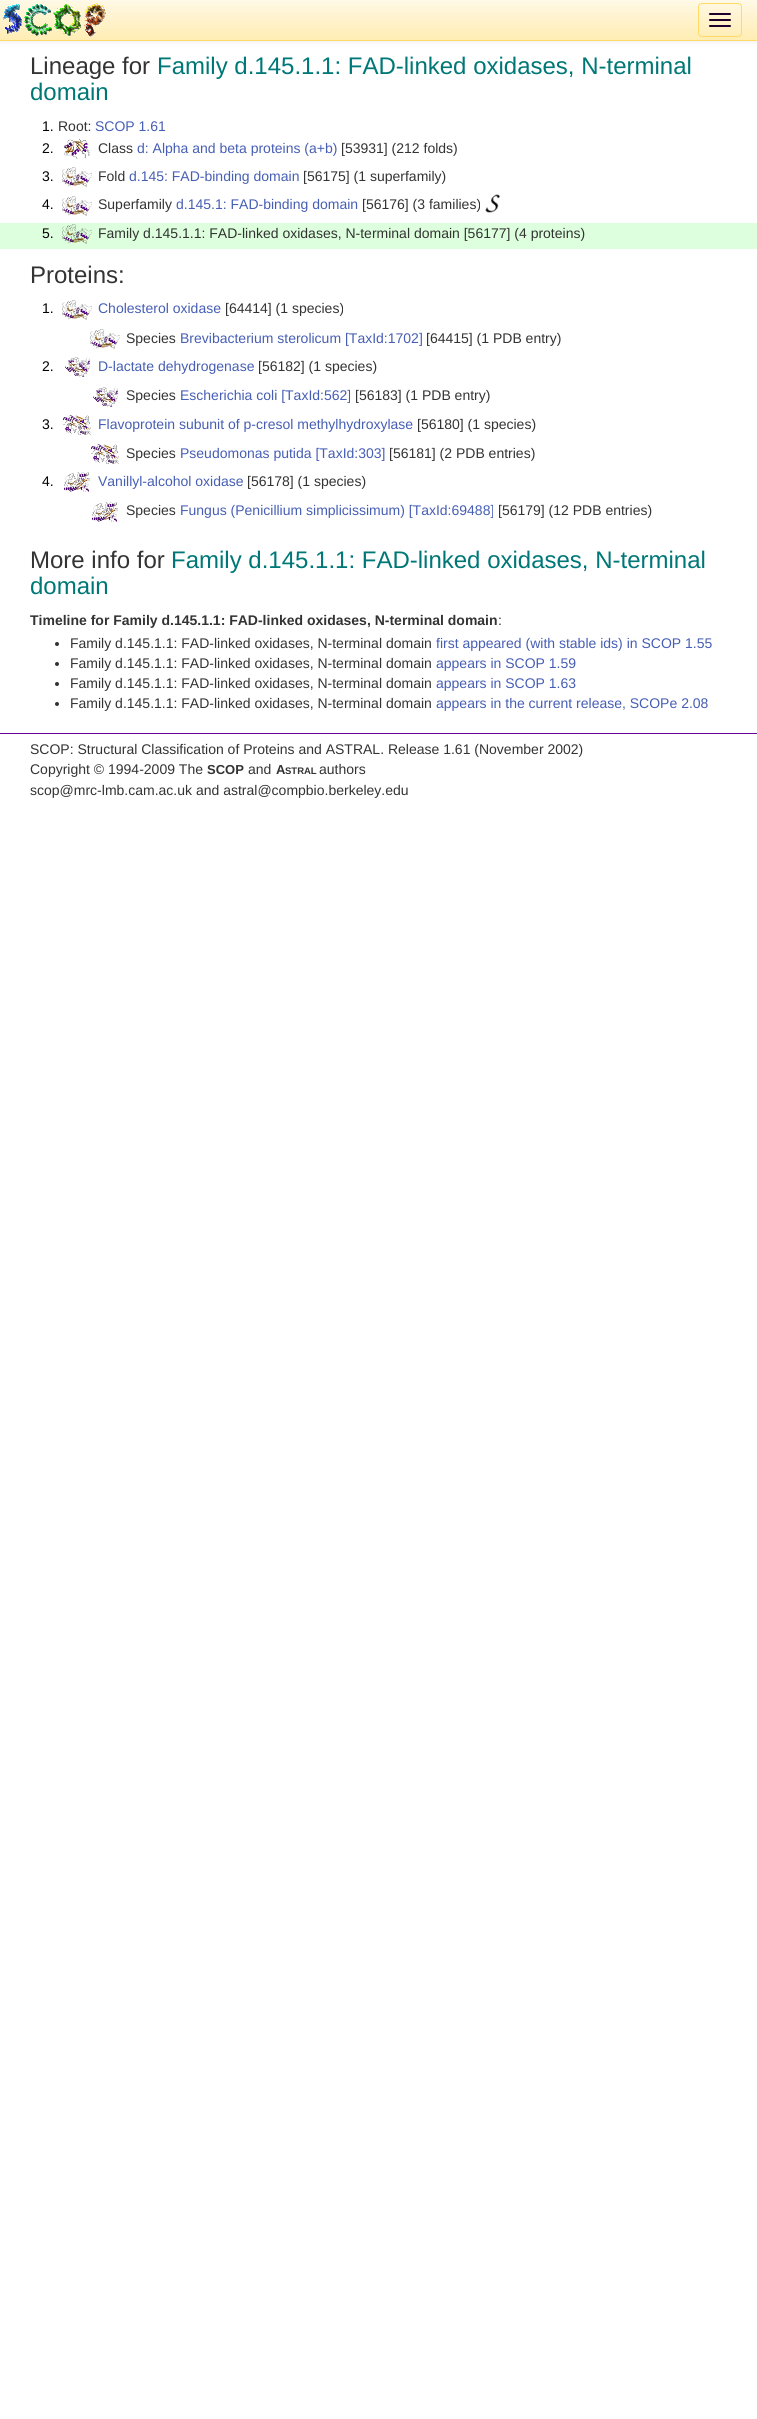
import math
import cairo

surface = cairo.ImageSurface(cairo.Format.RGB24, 757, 2419)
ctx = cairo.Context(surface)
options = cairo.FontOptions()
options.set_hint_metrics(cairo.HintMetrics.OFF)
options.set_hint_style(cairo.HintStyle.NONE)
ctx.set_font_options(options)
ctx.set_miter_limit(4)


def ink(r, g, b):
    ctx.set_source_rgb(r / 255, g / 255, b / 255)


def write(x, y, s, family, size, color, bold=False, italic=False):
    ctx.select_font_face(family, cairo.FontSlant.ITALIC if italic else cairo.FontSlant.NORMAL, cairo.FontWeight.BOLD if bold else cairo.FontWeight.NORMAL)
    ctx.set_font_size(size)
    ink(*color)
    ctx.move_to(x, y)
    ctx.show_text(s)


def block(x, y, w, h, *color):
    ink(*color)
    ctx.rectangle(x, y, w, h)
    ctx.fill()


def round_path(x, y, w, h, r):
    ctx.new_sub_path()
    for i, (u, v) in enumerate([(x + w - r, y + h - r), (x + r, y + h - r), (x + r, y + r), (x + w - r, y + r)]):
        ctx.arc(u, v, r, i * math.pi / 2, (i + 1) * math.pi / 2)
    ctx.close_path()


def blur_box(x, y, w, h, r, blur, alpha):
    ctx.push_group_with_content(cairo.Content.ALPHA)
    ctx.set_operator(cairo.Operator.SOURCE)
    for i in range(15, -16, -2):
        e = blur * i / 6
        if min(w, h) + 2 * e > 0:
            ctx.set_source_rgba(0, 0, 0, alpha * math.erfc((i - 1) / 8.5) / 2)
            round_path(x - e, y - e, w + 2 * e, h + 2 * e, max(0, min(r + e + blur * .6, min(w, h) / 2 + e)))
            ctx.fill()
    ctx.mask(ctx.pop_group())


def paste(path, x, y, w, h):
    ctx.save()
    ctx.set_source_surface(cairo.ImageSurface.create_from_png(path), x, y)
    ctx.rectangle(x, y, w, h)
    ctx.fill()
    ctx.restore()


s1 = dict(family="Liberation Sans", size=24, color=(51, 51, 51))
s2 = dict(family="Liberation Sans", size=24, color=(0, 119, 119))
s3 = dict(family="Liberation Sans", size=14, color=(0, 0, 0))
s4 = dict(family="Liberation Sans", size=14, color=(51, 51, 51))
s5 = dict(family="Liberation Sans", size=14, color=(70, 94, 180))
s6 = dict(family="Liberation Sans", size=14, color=(51, 51, 51), bold=True)
s7 = dict(family="Liberation Sans", size=13, color=(51, 51, 51), bold=True)
s8 = dict(family="Liberation Sans", size=9.5, color=(51, 51, 51), bold=True)

ink(255, 255, 255)
ctx.paint()
ink(0, 0, 0)
blur_box(0, 1, 757, 41, 0, 2.5, 0.07)
gradient = cairo.LinearGradient(379, 0, 379, 40)
gradient.add_color_stop_rgba(0, 1, 0.976, 0.902, 1)
gradient.add_color_stop_rgba(1, 1, 0.929, 0.702, 1)
ctx.set_source(gradient)
ctx.rectangle(0, 1, 757, 39)
ctx.fill()
block(0, 0, 757, 1, 255, 250, 233)
block(0, 40, 757, 1, 255, 218, 101)
paste("pic1.png", 3, 3, 103, 34)
round_path(698.5, 3.5, 43, 33, 3.5)
ctx.set_line_width(1)
ctx.stroke()
ink(29, 0, 43)
round_path(709, 13, 22, 2, 1)
ctx.fill()
round_path(709, 19, 22, 2, 1)
ctx.fill()
round_path(709, 25, 22, 2, 1)
ctx.fill()
write(30, 74, "Lineage for", **s1)
write(157, 74, "Family d.145.1.1: FAD-linked oxidases, N-terminal", **s2)
write(30, 100, "domain", **s2)
write(42, 131, "1.", **s3)
write(58, 131, "Root:", **s4)
write(95, 131, "SCOP 1.61", **s5)
write(42, 153, "2.", **s3)
paste("pic2.png", 64, 139, 26, 20)
write(98, 153, "Class", **s4)
write(137, 153, "d: Alpha and beta proteins (a+b)", **s5)
write(341, 153, "[53931] (212 folds)", **s4)
write(42, 181, "3.", **s3)
paste("pic3.png", 62, 167, 30, 20)
write(98, 181, "Fold", **s4)
write(129, 181, "d.145: FAD-binding domain", **s5)
write(303, 181, "[56175] (1 superfamily)", **s4)
write(42, 209, "4.", **s3)
paste("pic3.png", 62, 196, 30, 20)
write(98, 209, "Superfamily", **s4)
write(176, 209, "d.145.1: FAD-binding domain", **s5)
write(362, 209, "[56176] (3 families)", **s4)
paste("pic4.png", 485, 194, 15, 19)
block(0, 223, 757, 26, 221, 255, 221)
write(42, 238, "5.", **s3)
paste("pic5.png", 62, 224, 30, 20)
write(98, 238, "Family d.145.1.1: FAD-linked oxidases, N-terminal domain [56177] (4 proteins)", **s4)
write(30, 283, "Proteins:", **s1)
write(42, 313, "1.", **s3)
paste("pic3.png", 62, 300, 30, 20)
write(98, 313, "Cholesterol oxidase", **s5)
write(225, 313, "[64414] (1 species)", **s4)
paste("pic3.png", 90, 329, 30, 20)
write(126, 343, "Species", **s4)
write(180, 343, "Brevibacterium sterolicum [TaxId:1702]", **s5)
write(426, 343, "[64415] (1 PDB entry)", **s4)
write(42, 371, "2.", **s3)
paste("pic6.png", 65, 357, 25, 20)
write(98, 371, "D-lactate dehydrogenase", **s5)
write(258, 371, "[56182] (1 species)", **s4)
paste("pic6.png", 93, 387, 25, 20)
write(126, 400, "Species", **s4)
write(180, 400, "Escherichia coli [TaxId:562]", **s5)
write(355, 400, "[56183] (1 PDB entry)", **s4)
write(42, 429, "3.", **s3)
paste("pic7.png", 63, 415, 28, 20)
write(98, 429, "Flavoprotein subunit of p-cresol methylhydroxylase", **s5)
write(417, 429, "[56180] (1 species)", **s4)
paste("pic7.png", 91, 444, 28, 20)
write(126, 458, "Species", **s4)
write(180, 458, "Pseudomonas putida [TaxId:303]", **s5)
write(389, 458, "[56181] (2 PDB entries)", **s4)
write(42, 486, "4.", **s3)
paste("pic8.png", 64, 472, 26, 20)
write(98, 486, "Vanillyl-alcohol oxidase", **s5)
write(247, 486, "[56178] (1 species)", **s4)
paste("pic8.png", 92, 502, 26, 20)
write(126, 515, "Species", **s4)
write(180, 515, "Fungus (Penicillium simplicissimum) [TaxId:69488]", **s5)
write(498, 515, "[56179] (12 PDB entries)", **s4)
write(30, 568, "More info for", **s1)
write(171, 568, "Family d.145.1.1: FAD-linked oxidases, N-terminal", **s2)
write(30, 594, "domain", **s2)
write(30, 625, "Timeline for Family d.145.1.1: FAD-linked oxidases, N-terminal domain", **s6)
write(498, 625, ":", **s4)
ctx.new_path()
ctx.arc(57, 644, 2, 0, 2 * math.pi)
ctx.fill()
write(70, 648, "Family d.145.1.1: FAD-linked oxidases, N-terminal domain", **s4)
write(436, 648, "first appeared (with stable ids) in SCOP 1.55", **s5)
ink(51, 51, 51)
ctx.new_path()
ctx.arc(57, 664, 2, 0, 2 * math.pi)
ctx.fill()
write(70, 668, "Family d.145.1.1: FAD-linked oxidases, N-terminal domain", **s4)
write(436, 668, "appears in SCOP 1.59", **s5)
ink(51, 51, 51)
ctx.new_path()
ctx.arc(57, 684, 2, 0, 2 * math.pi)
ctx.fill()
write(70, 688, "Family d.145.1.1: FAD-linked oxidases, N-terminal domain", **s4)
write(436, 688, "appears in SCOP 1.63", **s5)
ink(51, 51, 51)
ctx.new_path()
ctx.arc(57, 704, 2, 0, 2 * math.pi)
ctx.fill()
write(70, 708, "Family d.145.1.1: FAD-linked oxidases, N-terminal domain", **s4)
write(436, 708, "appears in the current release, SCOPe 2.08", **s5)
block(0, 733, 757, 1, 102, 0, 153)
write(30, 754, "SCOP: Structural Classification of Proteins and ASTRAL. Release 1.61 (November 2002)", **s4)
write(30, 774, "Copyright © 1994-2009 The", **s4)
write(207, 774, "SCOP", **s7)
write(248, 774, "and", **s4)
write(276, 774, "A", **s7)
write(285, 774, "STRAL", **s8)
write(319, 774, "authors", **s4)
write(30, 795, "scop@mrc-lmb.cam.ac.uk and astral@compbio.berkeley.edu", **s4)
surface.write_to_png("screenshot.png")
